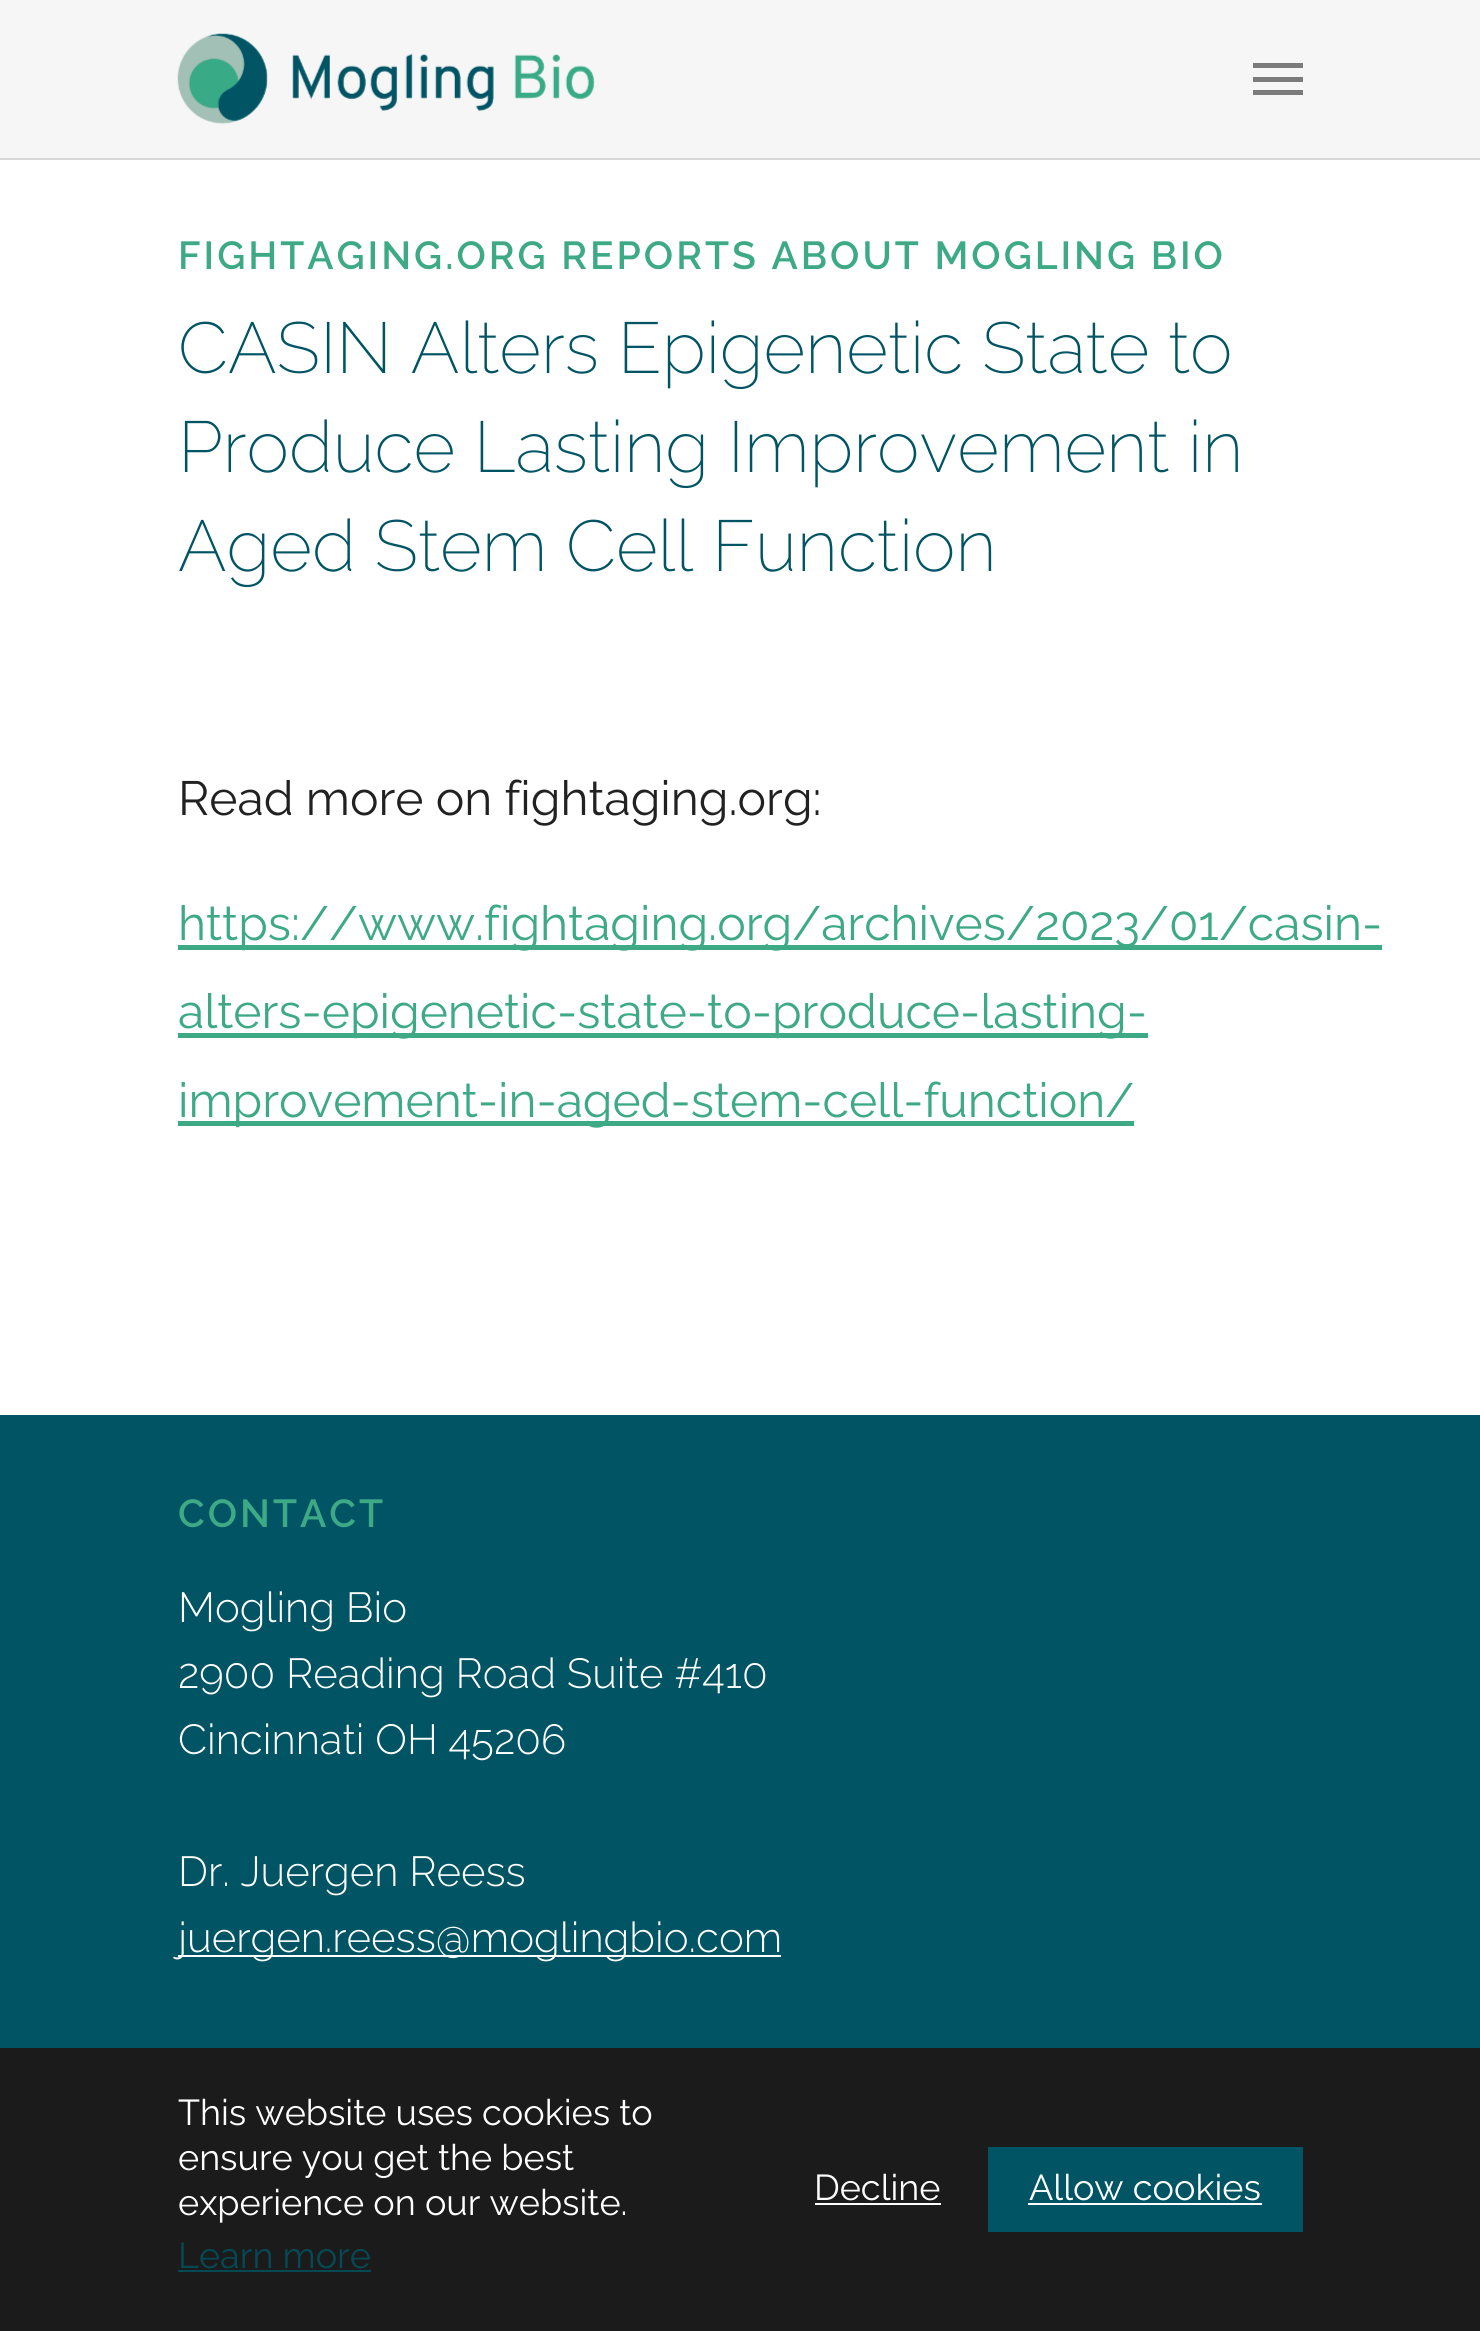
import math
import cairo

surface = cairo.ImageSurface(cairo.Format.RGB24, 1480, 2331)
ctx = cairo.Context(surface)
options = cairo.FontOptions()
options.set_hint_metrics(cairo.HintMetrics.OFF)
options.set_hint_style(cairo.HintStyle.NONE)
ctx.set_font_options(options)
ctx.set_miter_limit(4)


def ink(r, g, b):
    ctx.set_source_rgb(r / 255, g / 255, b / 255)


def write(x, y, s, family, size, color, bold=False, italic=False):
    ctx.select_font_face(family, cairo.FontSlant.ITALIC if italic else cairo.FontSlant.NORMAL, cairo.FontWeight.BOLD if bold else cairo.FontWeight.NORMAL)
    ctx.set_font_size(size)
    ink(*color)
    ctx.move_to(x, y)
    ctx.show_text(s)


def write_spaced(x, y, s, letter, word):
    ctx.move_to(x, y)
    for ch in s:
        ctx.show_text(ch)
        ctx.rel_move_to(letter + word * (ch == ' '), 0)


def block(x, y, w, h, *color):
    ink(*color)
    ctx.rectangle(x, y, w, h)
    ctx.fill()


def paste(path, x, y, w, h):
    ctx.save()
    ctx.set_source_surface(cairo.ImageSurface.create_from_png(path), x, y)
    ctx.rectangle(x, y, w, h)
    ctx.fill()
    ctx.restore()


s1 = dict(family="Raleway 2 Thin", size=72, color=(0, 84, 100))
s2 = dict(family="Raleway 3 Thin", size=48, color=(33, 33, 33))
s3 = dict(family="Raleway 3 Thin", size=48, color=(61, 170, 133))
s4 = dict(family="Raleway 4 Thin", size=42, color=(255, 255, 255))
s5 = dict(family="Raleway 3 Thin", size=36, color=(255, 255, 255))
s6 = dict(family="Raleway 3 Thin", size=36, color=(5, 73, 85))

ink(255, 255, 255)
ctx.paint()
ink(217, 217, 217)
ctx.new_path()
ctx.move_to(0, 158)
ctx.line_to(0, 160)
ctx.line_to(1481, 160)
ctx.line_to(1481, 2)
ctx.line_to(1480, 2)
ctx.line_to(1480, 158)
ctx.close_path()
ctx.fill()
block(0, 0, 1480, 158, 246, 246, 246)
paste("pic1.png", 177, 33, 418, 91)
block(1253, 77, 50, 5, 123, 123, 123)
block(1253, 63, 50, 5, 123, 123, 123)
block(1253, 90, 50, 5, 123, 123, 123)
ctx.select_font_face("Raleway Thin")
ctx.set_font_size(39)
ink(61, 170, 133)
write_spaced(178, 269, "FIGHTAGING.ORG REPORTS ABOUT MOGLING BIO", 3, 0)
write(178, 373, "CASIN Alters Epigenetic State to", **s1)
write(178, 472, "Produce Lasting Improvement in", **s1)
write(178, 571, "Aged Stem Cell Function", **s1)
write(178, 815, "Read more on fightaging.org:", **s2)
block(178, 945, 1204, 5, 61, 170, 133)
write(178, 940, "https://www.fightaging.org/archives/2023/01/casin-", **s3)
block(178, 1033, 970, 5, 61, 170, 133)
write(178, 1028, "alters-epigenetic-state-to-produce-lasting-", **s3)
block(178, 1121, 956, 5, 61, 170, 133)
write(178, 1117, "improvement-in-aged-stem-cell-function/", **s3)
block(0, 1415, 1480, 633, 0, 84, 100)
ctx.select_font_face("Raleway Thin")
ctx.set_font_size(39)
ink(61, 170, 133)
write_spaced(178, 1527, "CONTACT", 3, 0)
write(178, 1622, "Mogling Bio", **s4)
write(178, 1688, "2900 Reading Road Suite #410", **s4)
write(178, 1754, "Cincinnati OH 45206", **s4)
write(178, 1886, "Dr. Juergen Reess", **s4)
block(178, 1955, 603, 2, 255, 255, 255)
write(178, 1952, "juergen.reess@moglingbio.com", **s4)
block(0, 2048, 1480, 283, 27, 27, 27)
write(178, 2125, "This website uses cookies to", **s5)
write(178, 2170, "ensure you get the best", **s5)
write(178, 2215, "experience on our website.", **s5)
write(178, 2268, "Learn more", **s6)
block(178, 2270, 193, 2, 5, 73, 85)
write(814, 2200, "Decline", **s5)
block(815, 2203, 126, 2, 255, 255, 255)
block(988, 2147, 315, 85, 0, 84, 100)
write(1029, 2200, "Allow cookies", **s5)
block(1028, 2203, 234, 2, 255, 255, 255)
surface.write_to_png("screenshot.png")
